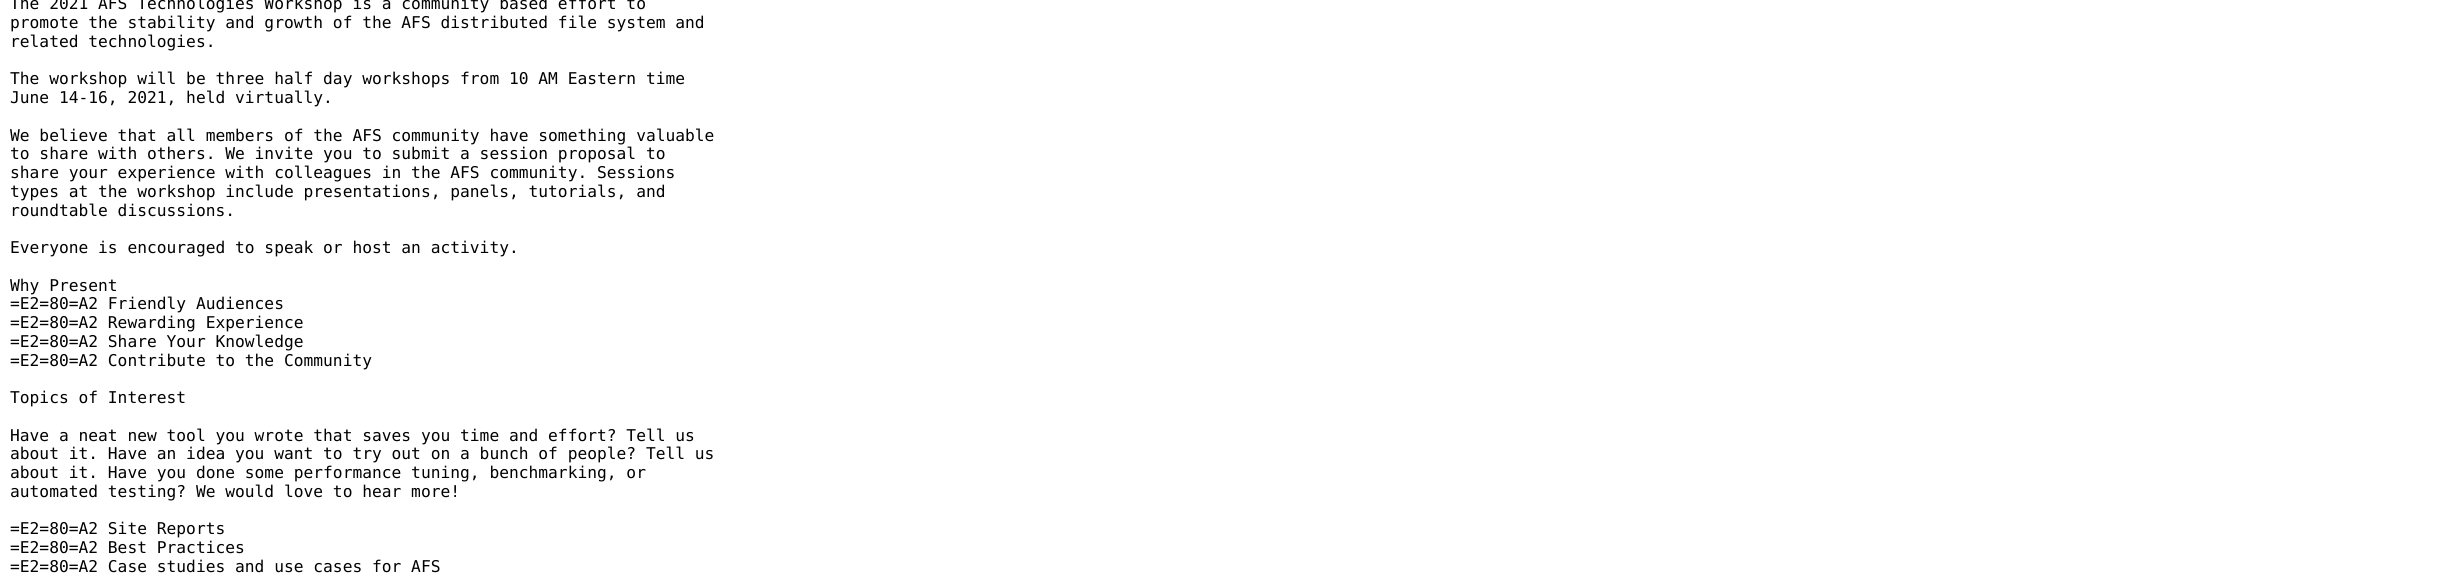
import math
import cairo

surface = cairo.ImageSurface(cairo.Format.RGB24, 2448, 580)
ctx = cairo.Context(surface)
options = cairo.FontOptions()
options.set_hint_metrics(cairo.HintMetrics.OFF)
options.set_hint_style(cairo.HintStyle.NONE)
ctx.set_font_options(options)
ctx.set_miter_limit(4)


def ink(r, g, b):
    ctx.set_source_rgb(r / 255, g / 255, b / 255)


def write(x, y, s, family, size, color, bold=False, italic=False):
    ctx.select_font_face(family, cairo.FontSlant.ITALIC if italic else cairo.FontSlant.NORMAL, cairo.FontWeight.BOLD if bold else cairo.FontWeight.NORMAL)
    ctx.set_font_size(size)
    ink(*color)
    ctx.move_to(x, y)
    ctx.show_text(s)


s1 = dict(family="DejaVu Sans Mono", size=16.25, color=(0, 0, 0))

ink(255, 255, 255)
ctx.paint()
write(10, 9, "The 2021 AFS Technologies Workshop is a community based effort to", **s1)
write(10, 28, "promote the stability and growth of the AFS distributed file system and", **s1)
write(10, 47, "related technologies.", **s1)
write(10, 84, "The workshop will be three half day workshops from 10 AM Eastern time", **s1)
write(10, 103, "June 14-16, 2021, held virtually.", **s1)
write(10, 141, "We believe that all members of the AFS community have something valuable", **s1)
write(10, 159, "to share with others. We invite you to submit a session proposal to", **s1)
write(10, 178, "share your experience with colleagues in the AFS community. Sessions", **s1)
write(10, 197, "types at the workshop include presentations, panels, tutorials, and", **s1)
write(10, 216, "roundtable discussions.", **s1)
write(10, 253, "Everyone is encouraged to speak or host an activity.", **s1)
write(10, 291, "Why Present", **s1)
write(10, 309, "=E2=80=A2 Friendly Audiences", **s1)
write(10, 328, "=E2=80=A2 Rewarding Experience", **s1)
write(10, 347, "=E2=80=A2 Share Your Knowledge", **s1)
write(10, 366, "=E2=80=A2 Contribute to the Community", **s1)
write(10, 403, "Topics of Interest", **s1)
write(10, 441, "Have a neat new tool you wrote that saves you time and effort? Tell us", **s1)
write(10, 459, "about it. Have an idea you want to try out on a bunch of people? Tell us", **s1)
write(10, 478, "about it. Have you done some performance tuning, benchmarking, or", **s1)
write(10, 497, "automated testing? We would love to hear more!", **s1)
write(10, 534, "=E2=80=A2 Site Reports", **s1)
write(10, 553, "=E2=80=A2 Best Practices", **s1)
write(10, 572, "=E2=80=A2 Case studies and use cases for AFS", **s1)
surface.write_to_png("screenshot.png")
